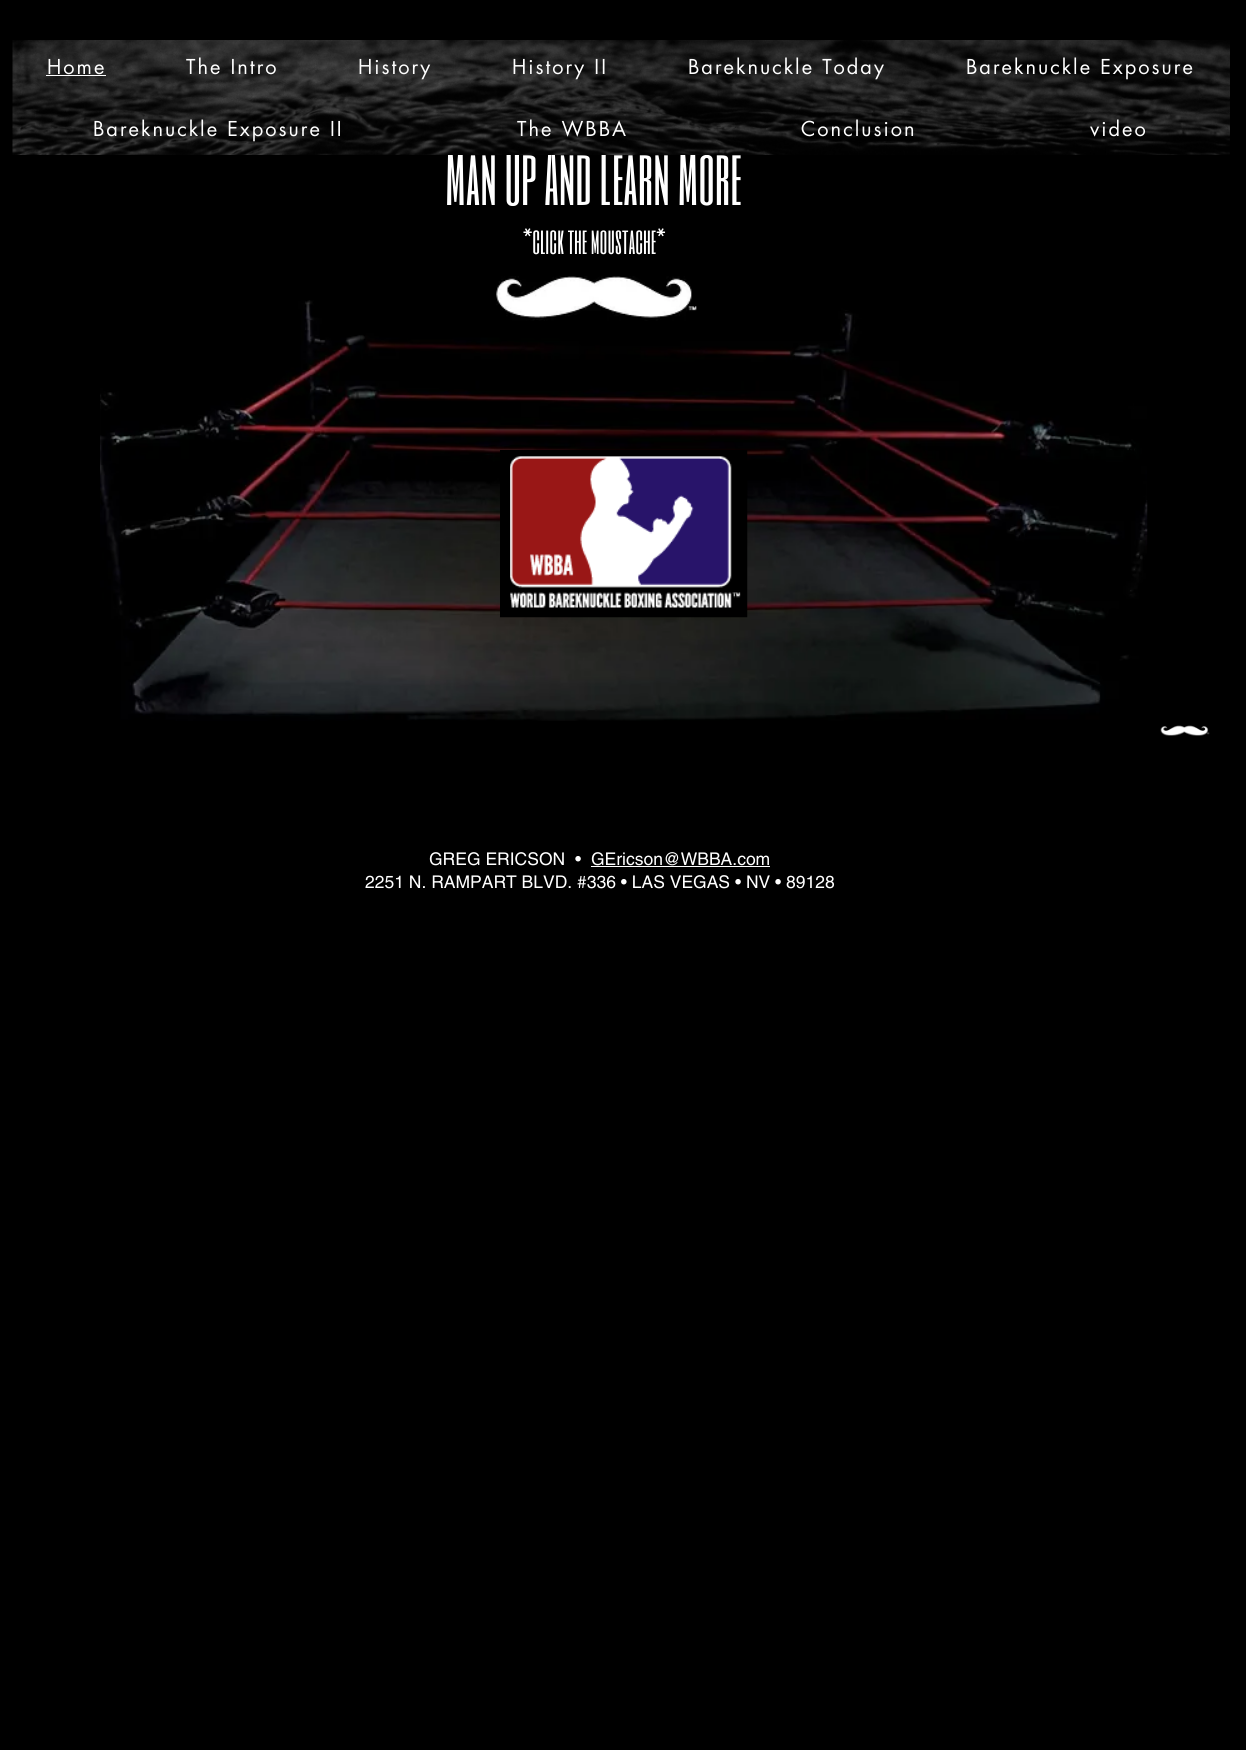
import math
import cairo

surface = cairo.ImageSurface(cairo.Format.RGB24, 1246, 1750)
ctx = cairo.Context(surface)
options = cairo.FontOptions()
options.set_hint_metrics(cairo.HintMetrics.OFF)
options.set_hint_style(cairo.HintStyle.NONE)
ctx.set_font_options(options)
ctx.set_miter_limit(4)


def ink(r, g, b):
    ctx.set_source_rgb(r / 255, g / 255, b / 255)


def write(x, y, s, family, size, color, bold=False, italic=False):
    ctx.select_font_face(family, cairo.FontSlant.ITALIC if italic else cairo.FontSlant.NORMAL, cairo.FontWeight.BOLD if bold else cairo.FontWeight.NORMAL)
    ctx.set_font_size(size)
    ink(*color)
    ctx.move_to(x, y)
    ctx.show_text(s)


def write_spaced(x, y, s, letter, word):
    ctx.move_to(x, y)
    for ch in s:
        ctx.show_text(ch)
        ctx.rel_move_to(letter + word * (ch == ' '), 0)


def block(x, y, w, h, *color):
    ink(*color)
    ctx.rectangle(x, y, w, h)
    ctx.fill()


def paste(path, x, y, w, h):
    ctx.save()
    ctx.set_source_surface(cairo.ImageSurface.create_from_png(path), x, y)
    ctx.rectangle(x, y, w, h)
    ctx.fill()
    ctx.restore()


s1 = dict(family="Six Caps", size=66.25, color=(255, 255, 255))
s2 = dict(family="Six Caps", size=31.25, color=(255, 255, 255))
s3 = dict(family="helvetica", size=17.5, color=(255, 255, 255))

ink(0, 0, 0)
ctx.paint()
write(445, 205, "Man Up And Learn More", **s1)
paste("pic1.png", 12, 40, 1218, 115)
ctx.select_font_face("futura")
ctx.set_font_size(20)
write_spaced(47, 74, "Home", 2, 0)
block(46, 75, 60, 1, 255, 255, 255)
write_spaced(186, 74, "The Intro", 2, 0)
write_spaced(358, 74, "History", 2, 0)
write_spaced(512, 74, "History II", 2, 0)
write_spaced(688, 74, "Bareknuckle Today", 2, 0)
write_spaced(966, 74, "Bareknuckle Exposure", 2, 0)
write_spaced(93, 136, "Bareknuckle Exposure II", 2, 0)
write_spaced(517, 136, "The WBBA", 2, 0)
write_spaced(801, 136, "Conclusion", 2, 0)
write_spaced(1090, 136, "video", 2, 0)
write(523, 254, "*click the moustache*", **s2)
paste("pic3.png", 100, 300, 1048, 421)
paste("pic2.png", 496, 276, 201, 45)
paste("pic4.png", 500, 450, 248, 168)
paste("pic5.png", 1160, 725, 50, 11)
write(429, 865, "GREG ERICSON", **s3)
write(575, 865, "•", **s3)
write(591, 865, "GEricson@WBBA.com", **s3)
block(591, 866, 179, 1, 255, 255, 255)
write(365, 888, "2251 N. RAMPART BLVD. #336 • LAS VEGAS • NV • 89128", **s3)
surface.write_to_png("screenshot.png")
